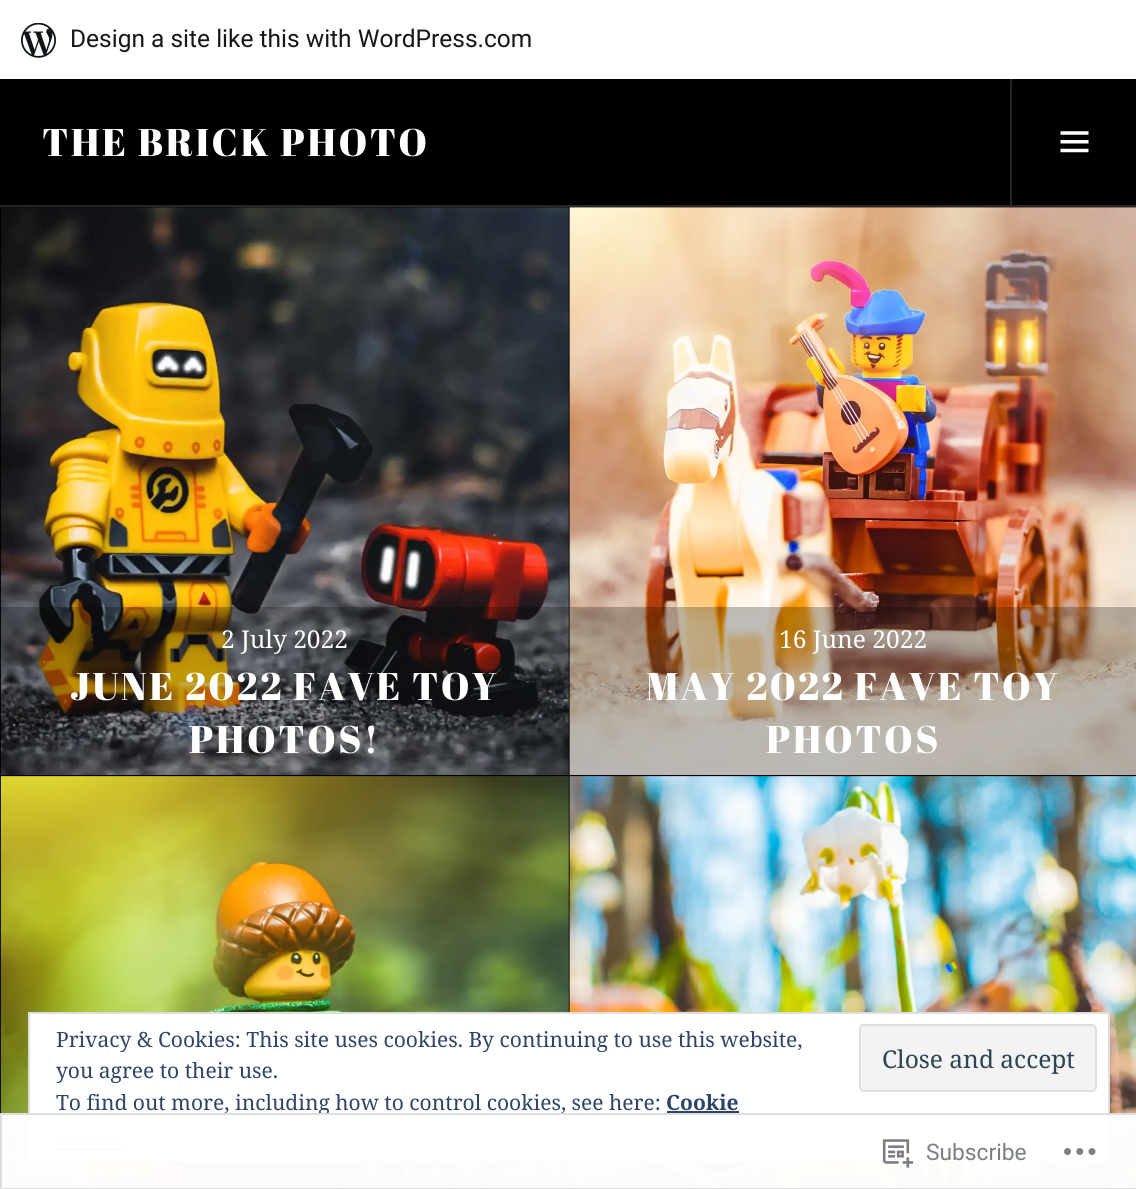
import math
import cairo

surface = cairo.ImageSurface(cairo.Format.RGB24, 1136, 1189)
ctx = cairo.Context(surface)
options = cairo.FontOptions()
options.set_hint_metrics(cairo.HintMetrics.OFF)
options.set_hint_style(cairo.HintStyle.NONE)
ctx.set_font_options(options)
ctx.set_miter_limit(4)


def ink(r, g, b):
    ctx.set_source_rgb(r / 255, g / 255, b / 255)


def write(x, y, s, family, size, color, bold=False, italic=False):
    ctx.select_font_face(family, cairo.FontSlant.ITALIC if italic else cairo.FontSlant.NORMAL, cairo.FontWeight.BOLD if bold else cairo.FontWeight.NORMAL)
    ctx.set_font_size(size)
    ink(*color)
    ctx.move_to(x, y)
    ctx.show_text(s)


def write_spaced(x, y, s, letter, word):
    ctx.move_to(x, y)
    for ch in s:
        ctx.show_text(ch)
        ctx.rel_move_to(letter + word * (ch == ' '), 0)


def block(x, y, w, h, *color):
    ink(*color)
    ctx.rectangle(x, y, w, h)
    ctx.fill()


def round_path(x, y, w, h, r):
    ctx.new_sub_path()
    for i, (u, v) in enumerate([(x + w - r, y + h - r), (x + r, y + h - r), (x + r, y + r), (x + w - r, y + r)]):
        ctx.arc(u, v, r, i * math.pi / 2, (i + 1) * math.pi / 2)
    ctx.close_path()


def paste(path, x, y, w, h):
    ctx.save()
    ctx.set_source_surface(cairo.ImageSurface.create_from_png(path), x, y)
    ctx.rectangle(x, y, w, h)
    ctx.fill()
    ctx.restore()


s1 = dict(family="Roboto", size=24.5, color=(23, 23, 23))
s2 = dict(family="Noto Serif", size=24.5, color=(255, 255, 255))
s3 = dict(family="Noto Serif", size=21, color=(46, 68, 103))
s4 = dict(family="Noto Serif", size=24.5, color=(46, 68, 83))
s5 = dict(family="Noto Serif", size=21, color=(46, 68, 103), bold=True)
s6 = dict(family="Roboto", size=22.75, color=(123, 127, 132))

ink(0, 0, 0)
ctx.paint()
block(1010, 79, 2, 126, 38, 38, 38)
ctx.set_source_rgba(0, 0, 0, 0.08)
ctx.new_path()
ctx.move_to(2, 79)
ctx.line_to(2, 84)
ctx.line_to(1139, 84)
ctx.line_to(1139, 5)
ctx.line_to(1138, 5)
ctx.line_to(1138, 79)
ctx.close_path()
ctx.fill()
block(0, 0, 1136, 79, 255, 255, 255)
paste("pic1.png", 21, 23, 35, 35)
write(70, 47, "Design a site like this with WordPress.com", **s1)
block(0, 205, 1136, 2, 38, 38, 38)
ctx.select_font_face("Abril Fatface")
ctx.set_font_size(38.5)
ink(255, 255, 255)
write_spaced(42, 156, "THE BRICK PHOTO", 2.4, 0)
paste("pic2.png", 1060, 131, 29, 22)
paste("pic3.png", 0, 207, 569, 568)
ctx.set_source_rgba(0, 0, 0, 0.25)
ctx.rectangle(0, 607, 569, 168)
ctx.fill()
write(221, 648, "2 July 2022", **s2)
ctx.select_font_face("Abril Fatface")
ctx.set_font_size(38.5)
write_spaced(70, 700, "JUNE 2022 FAVE TOY", 2.4, 0)
write_spaced(189, 753, "PHOTOS!", 2.4, 0)
paste("pic4.png", 569, 207, 567, 568)
ctx.set_source_rgba(0, 0, 0, 0.25)
ctx.rectangle(569, 607, 567, 168)
ctx.fill()
write(779, 648, "16 June 2022", **s2)
ctx.select_font_face("Abril Fatface")
ctx.set_font_size(38.5)
write_spaced(646, 700, "MAY 2022 FAVE TOY", 2.4, 0)
write_spaced(766, 753, "PHOTOS", 2.4, 0)
paste("pic5.png", 0, 776, 569, 413)
ctx.set_source_rgba(0, 0, 0, 0.25)
ctx.rectangle(0, 1176, 569, 13)
ctx.fill()
paste("pic6.png", 569, 776, 567, 413)
ctx.rectangle(569, 1176, 567, 13)
ctx.fill()
ink(255, 255, 255)
ctx.rectangle(29, 1013, 1080, 148)
ctx.fill_preserve()
ink(222, 222, 222)
ctx.stroke()
write(56, 1047, "Privacy & Cookies: This site uses cookies. By continuing to use this website,", **s3)
write(56, 1078, "you agree to their use.", **s3)
ink(243, 243, 243)
round_path(860, 1025, 236, 66, 4)
ctx.fill_preserve()
ink(222, 222, 222)
ctx.stroke()
write(882, 1068, "Close and accept", **s4)
write(56, 1110, "To find out more, including how to control cookies, see here:", **s3)
write(666, 1110, "Cookie", **s5)
block(667, 1117, 72, 2, 38, 38, 38)
block(56, 1148, 65, 2, 38, 38, 38)
block(667, 1111, 72, 2, 46, 68, 103)
block(56, 1143, 65, 2, 46, 68, 103)
ctx.set_source_rgba(1, 1, 1, 0.98)
ctx.rectangle(0, 1113, 1136, 76)
ctx.fill()
ctx.rectangle(1, 1114, 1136, 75)
ctx.set_source_rgba(0.863, 0.863, 0.871, 0.98)
ctx.stroke()
paste("pic7.png", 882, 1139, 32, 29)
write(926, 1160, "Subscribe", **s6)
paste("pic8.png", 1064, 1148, 32, 7)
surface.write_to_png("screenshot.png")
